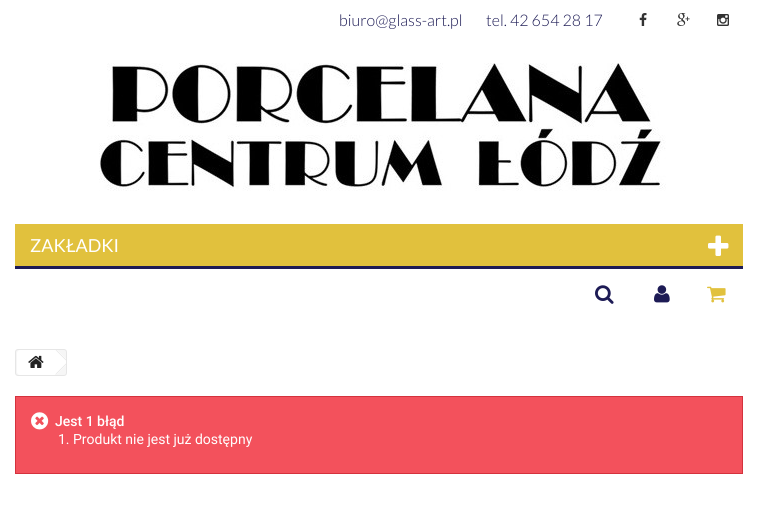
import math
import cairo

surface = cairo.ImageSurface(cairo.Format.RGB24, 758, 522)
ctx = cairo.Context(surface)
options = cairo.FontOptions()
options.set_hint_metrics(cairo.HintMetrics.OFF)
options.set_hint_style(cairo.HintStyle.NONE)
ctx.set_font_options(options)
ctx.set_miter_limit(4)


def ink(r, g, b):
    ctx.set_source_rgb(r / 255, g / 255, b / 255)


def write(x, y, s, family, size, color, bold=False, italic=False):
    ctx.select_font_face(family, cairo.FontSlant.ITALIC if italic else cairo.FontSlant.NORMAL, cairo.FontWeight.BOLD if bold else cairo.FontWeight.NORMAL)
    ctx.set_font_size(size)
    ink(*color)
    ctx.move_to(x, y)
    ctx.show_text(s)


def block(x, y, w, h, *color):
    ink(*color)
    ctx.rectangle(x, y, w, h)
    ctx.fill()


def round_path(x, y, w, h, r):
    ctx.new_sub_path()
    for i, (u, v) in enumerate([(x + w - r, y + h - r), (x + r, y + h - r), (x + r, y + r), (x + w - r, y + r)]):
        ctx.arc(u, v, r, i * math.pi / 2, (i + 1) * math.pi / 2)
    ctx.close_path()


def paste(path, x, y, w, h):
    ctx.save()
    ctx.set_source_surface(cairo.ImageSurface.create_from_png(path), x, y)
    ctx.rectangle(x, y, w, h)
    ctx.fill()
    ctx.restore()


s1 = dict(family="Lato Light", size=16, color=(29, 27, 85))
s2 = dict(family="Lato", size=18, color=(255, 255, 255))
s3 = dict(family="Roboto Medium", size=14, color=(255, 255, 255))
s4 = dict(family="Roboto", size=14, color=(255, 255, 255))

ink(255, 255, 255)
ctx.paint()
write(339, 26, "biuro@glass-art.pl", **s1)
write(486, 26, "tel. 42 654 28 17", **s1)
paste("pic1.png", 639, 13, 8, 13)
paste("pic2.png", 677, 13, 13, 13)
paste("pic3.png", 717, 14, 12, 12)
paste("pic4.png", 99, 63, 567, 128)
block(15, 224, 728, 42, 225, 193, 61)
block(15, 266, 728, 3, 29, 27, 85)
write(30, 252, "ZAKŁADKI", **s2)
paste("pic5.png", 708, 235, 21, 21)
paste("pic6.png", 595, 285, 19, 19)
paste("pic7.png", 654, 285, 16, 18)
paste("pic8.png", 707, 286, 19, 17)
ink(246, 246, 246)
round_path(15.5, 349.5, 51, 26, 2.5)
ctx.fill_preserve()
ink(230, 230, 230)
ctx.set_line_width(1)
ctx.stroke()
ink(255, 255, 255)
ctx.new_path()
ctx.move_to(20, 350)
ctx.line_to(55, 350)
ctx.line_to(55, 375)
ctx.line_to(20, 375)
ctx.curve_to(18.5, 375, 17, 373.5, 17, 372)
ctx.line_to(17, 353)
ctx.curve_to(17, 351.5, 18.5, 350, 20, 350)
ctx.close_path()
ctx.fill()
paste("pic9.png", 28, 355, 16, 13)
ctx.new_path()
ctx.move_to(57.5, 350.5)
ctx.line_to(66, 359)
ctx.line_to(66, 365)
ctx.line_to(57.5, 373.5)
ctx.curve_to(56.5, 374, 55.5, 374, 54.5, 373.5)
ctx.line_to(44.5, 363.5)
ctx.curve_to(44, 362.5, 44, 361.5, 44.5, 360.5)
ctx.line_to(54.5, 350.5)
ctx.curve_to(55.5, 350, 56.5, 350, 57.5, 350.5)
ctx.close_path()
ctx.fill()
ink(230, 230, 230)
ctx.new_path()
ctx.move_to(56.5, 350)
ctx.line_to(66, 359.5)
ctx.line_to(66, 360.5)
ctx.line_to(56, 350.5)
ctx.close_path()
ctx.move_to(66, 363.5)
ctx.line_to(66, 364.5)
ctx.line_to(56.5, 374)
ctx.line_to(56, 373.5)
ctx.close_path()
ctx.fill()
ink(243, 81, 92)
ctx.rectangle(15.5, 396.5, 727, 77)
ctx.fill_preserve()
ink(212, 50, 61)
ctx.stroke()
paste("pic10.png", 31, 412, 18, 18)
write(55, 426, "Jest 1 błąd", **s3)
write(58, 444, "1. Produkt nie jest już dostępny", **s4)
surface.write_to_png("screenshot.png")
